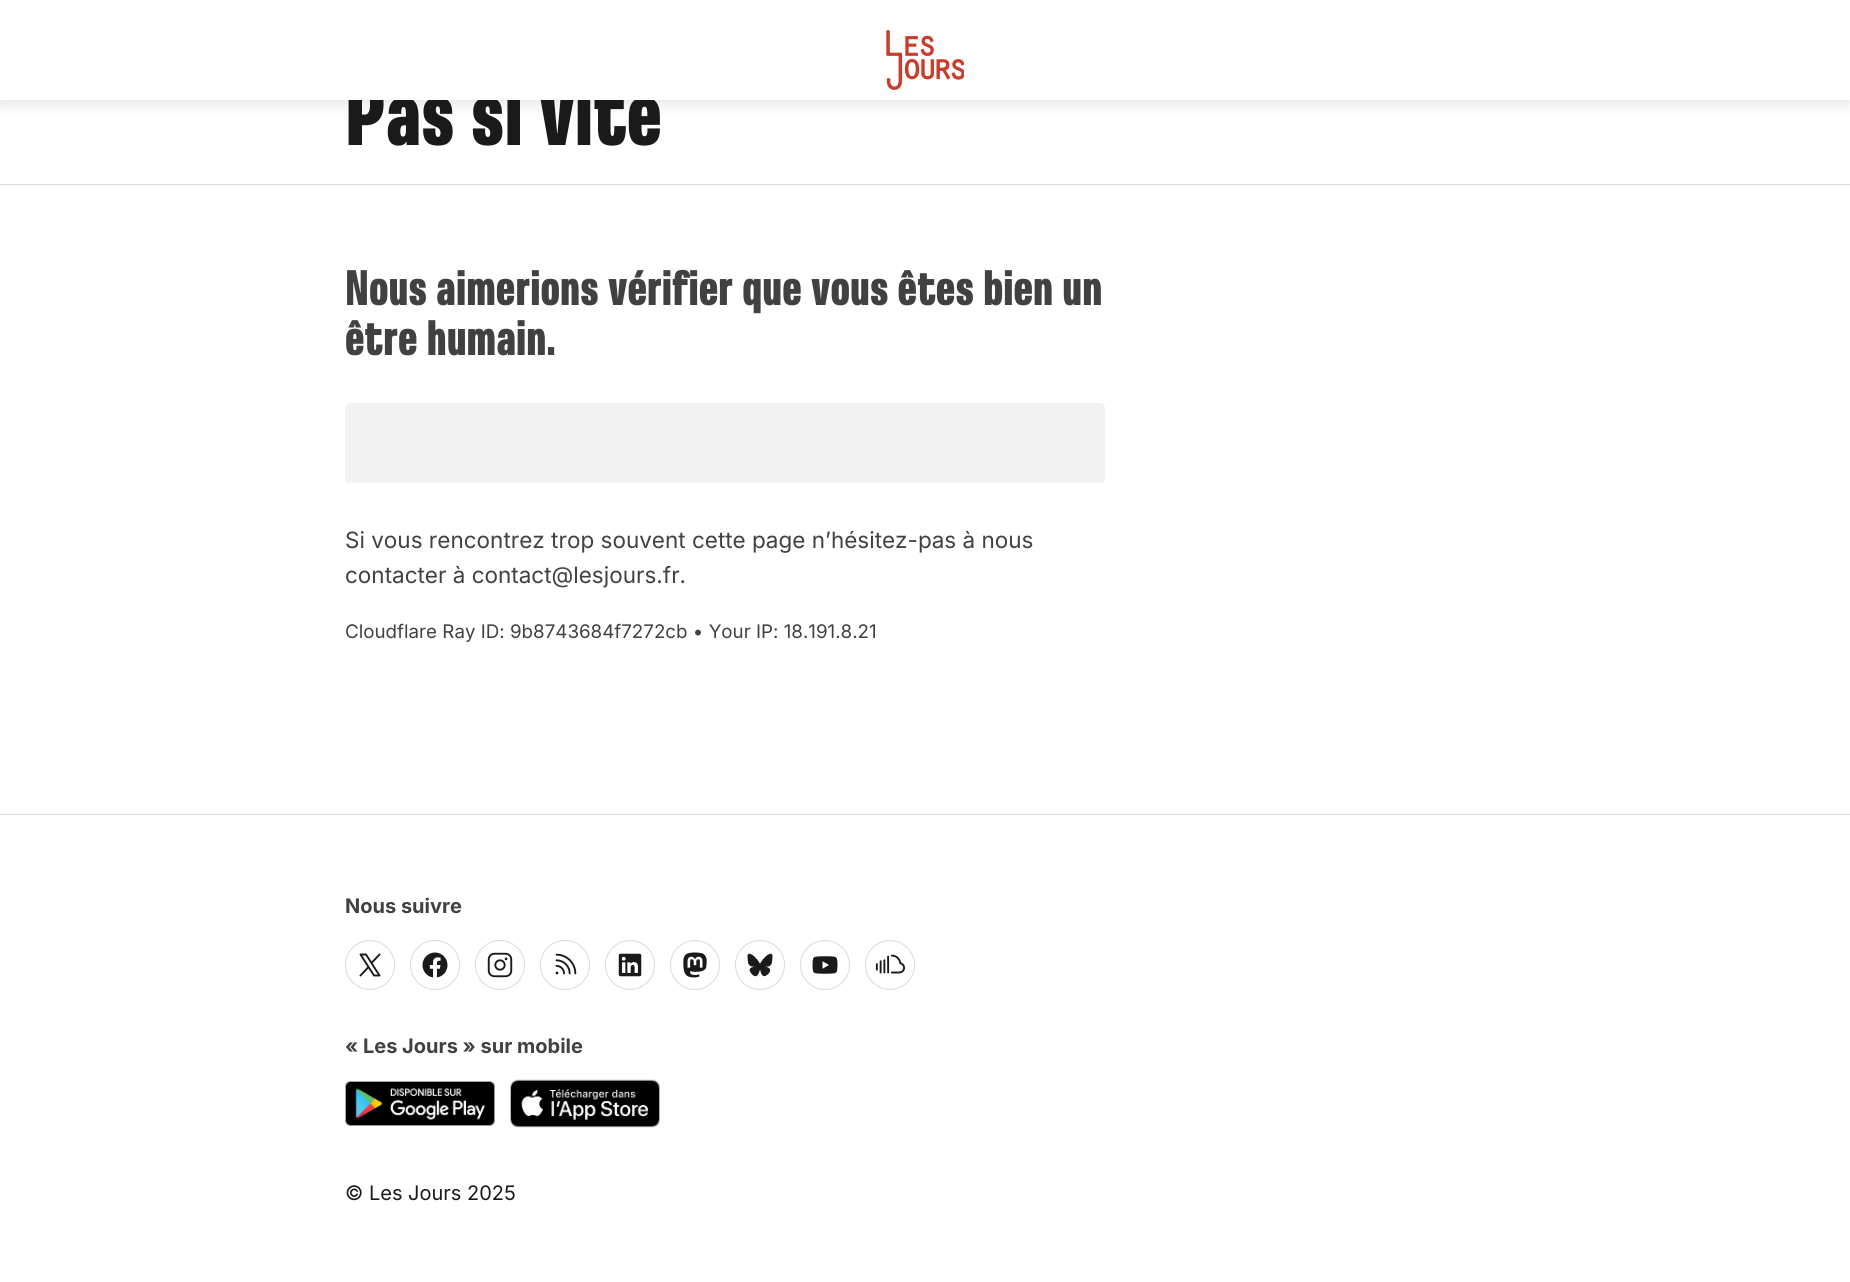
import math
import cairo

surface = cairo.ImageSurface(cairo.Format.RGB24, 1850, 1282)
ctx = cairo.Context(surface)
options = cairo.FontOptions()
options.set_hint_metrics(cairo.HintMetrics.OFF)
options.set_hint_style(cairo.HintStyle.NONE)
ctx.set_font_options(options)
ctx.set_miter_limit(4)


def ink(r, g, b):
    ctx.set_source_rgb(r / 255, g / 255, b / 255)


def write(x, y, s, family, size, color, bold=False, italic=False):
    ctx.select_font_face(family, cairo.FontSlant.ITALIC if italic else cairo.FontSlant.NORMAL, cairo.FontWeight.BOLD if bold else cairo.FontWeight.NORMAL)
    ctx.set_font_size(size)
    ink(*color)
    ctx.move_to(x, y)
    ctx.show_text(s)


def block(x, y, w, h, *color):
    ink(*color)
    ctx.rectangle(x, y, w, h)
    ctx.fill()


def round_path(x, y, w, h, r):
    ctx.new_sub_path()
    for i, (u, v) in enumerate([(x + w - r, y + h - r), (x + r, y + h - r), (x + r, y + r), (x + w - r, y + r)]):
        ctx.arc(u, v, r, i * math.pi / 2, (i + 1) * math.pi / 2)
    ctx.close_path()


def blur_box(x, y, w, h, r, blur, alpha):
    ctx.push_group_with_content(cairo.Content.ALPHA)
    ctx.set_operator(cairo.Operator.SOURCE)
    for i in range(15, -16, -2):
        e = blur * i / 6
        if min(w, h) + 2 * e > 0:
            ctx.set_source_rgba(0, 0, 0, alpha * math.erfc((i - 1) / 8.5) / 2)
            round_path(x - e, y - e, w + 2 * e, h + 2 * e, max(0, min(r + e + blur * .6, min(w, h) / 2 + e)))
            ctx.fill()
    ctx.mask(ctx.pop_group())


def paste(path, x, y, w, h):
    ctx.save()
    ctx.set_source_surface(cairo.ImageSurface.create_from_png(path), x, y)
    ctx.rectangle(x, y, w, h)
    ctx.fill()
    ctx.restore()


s1 = dict(family="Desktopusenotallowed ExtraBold", size=90, color=(26, 26, 26))
s2 = dict(family="Desktopusenotallowed ExtraBold", size=50, color=(65, 65, 65))
s3 = dict(family="Inter", size=22.5, color=(65, 65, 65))
s4 = dict(family="Inter", size=18.75, color=(65, 65, 65))
s5 = dict(family="Inter", size=20, color=(65, 65, 65), bold=True)
s6 = dict(family="Inter", size=20, color=(26, 26, 26))

ink(255, 255, 255)
ctx.paint()
ink(0, 0, 0)
blur_box(0, 0, 1850, 100, 0, 10, 0.15)
write(345, 145, "Pas si vite", **s1)
block(0, 0, 1850, 100, 255, 255, 255)
paste("pic1.png", 886, 30, 78, 60)
block(0, 184, 1850, 1, 217, 217, 217)
write(345, 305, "Nous aimerions vérifier que vous êtes bien un", **s2)
write(345, 355, "être humain.", **s2)
ink(242, 242, 242)
round_path(345, 403, 760, 80, 5)
ctx.fill()
write(345, 548, "Si vous rencontrez trop souvent cette page n’hésitez-pas à nous", **s3)
write(345, 583, "contacter à contact@lesjours.fr.", **s3)
write(345, 638, "Cloudflare Ray ID: 9b8743684f7272cb • Your IP: 18.191.8.21", **s4)
block(0, 814, 1850, 1, 217, 217, 217)
write(345, 913, "Nous suivre", **s5)
ctx.new_path()
ctx.arc(370, 965, 24.5, 0, 2 * math.pi)
ink(217, 217, 217)
ctx.set_line_width(1)
ctx.stroke()
ctx.new_path()
ctx.move_to(360.5, 954.5)
ctx.line_to(366, 954.5)
ctx.line_to(379.5, 975.5)
ctx.line_to(374, 975.5)
ctx.close_path()
ctx.move_to(368.5, 967)
ctx.line_to(360.5, 975.5)
ctx.move_to(379.5, 954.5)
ctx.line_to(371.5, 963)
ink(26, 26, 26)
ctx.set_line_width(1.9)
ctx.set_line_cap(cairo.LineCap.ROUND)
ctx.set_line_join(cairo.LineJoin.ROUND)
ctx.stroke()
ctx.arc(435, 965, 24.5, 0, 2 * math.pi)
ink(217, 217, 217)
ctx.set_line_width(1)
ctx.set_line_cap(cairo.LineCap.BUTT)
ctx.set_line_join(cairo.LineJoin.MITER)
ctx.stroke()
paste("pic2.png", 422, 952, 26, 26)
ctx.arc(500, 965, 24.5, 0, 2 * math.pi)
ctx.stroke()
paste("pic3.png", 487, 952, 26, 26)
ctx.arc(565, 965, 24.5, 0, 2 * math.pi)
ctx.stroke()
paste("pic4.png", 555, 953, 22, 22)
ctx.arc(630, 965, 24.5, 0, 2 * math.pi)
ctx.stroke()
paste("pic5.png", 618, 953, 24, 24)
ctx.arc(695, 965, 24.5, 0, 2 * math.pi)
ctx.stroke()
paste("pic6.png", 683, 952, 24, 26)
ctx.arc(760, 965, 24.5, 0, 2 * math.pi)
ctx.stroke()
paste("pic7.png", 747, 953, 26, 24)
ctx.arc(825, 965, 24.5, 0, 2 * math.pi)
ctx.stroke()
paste("pic8.png", 812, 956, 26, 18)
ctx.arc(890, 965, 24.5, 0, 2 * math.pi)
ctx.stroke()
paste("pic9.png", 875, 954, 30, 20)
write(345, 1053, "« Les Jours » sur mobile", **s5)
paste("pic10.png", 345, 1081, 150, 45)
paste("pic11.png", 510, 1079, 150, 49)
write(345, 1200, "© Les Jours 2025", **s6)
surface.write_to_png("screenshot.png")
